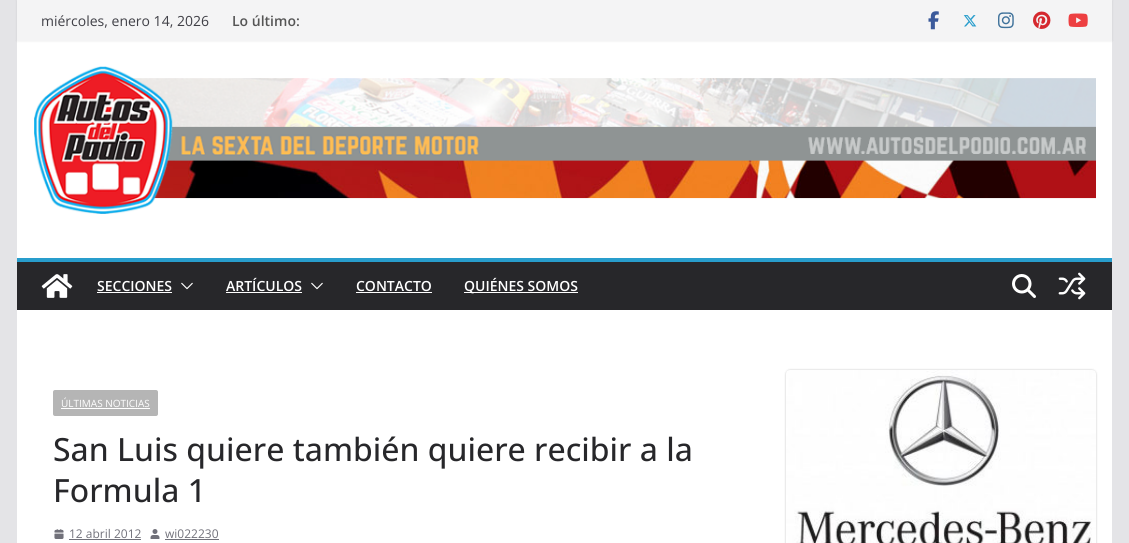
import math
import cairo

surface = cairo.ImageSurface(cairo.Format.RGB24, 1129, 543)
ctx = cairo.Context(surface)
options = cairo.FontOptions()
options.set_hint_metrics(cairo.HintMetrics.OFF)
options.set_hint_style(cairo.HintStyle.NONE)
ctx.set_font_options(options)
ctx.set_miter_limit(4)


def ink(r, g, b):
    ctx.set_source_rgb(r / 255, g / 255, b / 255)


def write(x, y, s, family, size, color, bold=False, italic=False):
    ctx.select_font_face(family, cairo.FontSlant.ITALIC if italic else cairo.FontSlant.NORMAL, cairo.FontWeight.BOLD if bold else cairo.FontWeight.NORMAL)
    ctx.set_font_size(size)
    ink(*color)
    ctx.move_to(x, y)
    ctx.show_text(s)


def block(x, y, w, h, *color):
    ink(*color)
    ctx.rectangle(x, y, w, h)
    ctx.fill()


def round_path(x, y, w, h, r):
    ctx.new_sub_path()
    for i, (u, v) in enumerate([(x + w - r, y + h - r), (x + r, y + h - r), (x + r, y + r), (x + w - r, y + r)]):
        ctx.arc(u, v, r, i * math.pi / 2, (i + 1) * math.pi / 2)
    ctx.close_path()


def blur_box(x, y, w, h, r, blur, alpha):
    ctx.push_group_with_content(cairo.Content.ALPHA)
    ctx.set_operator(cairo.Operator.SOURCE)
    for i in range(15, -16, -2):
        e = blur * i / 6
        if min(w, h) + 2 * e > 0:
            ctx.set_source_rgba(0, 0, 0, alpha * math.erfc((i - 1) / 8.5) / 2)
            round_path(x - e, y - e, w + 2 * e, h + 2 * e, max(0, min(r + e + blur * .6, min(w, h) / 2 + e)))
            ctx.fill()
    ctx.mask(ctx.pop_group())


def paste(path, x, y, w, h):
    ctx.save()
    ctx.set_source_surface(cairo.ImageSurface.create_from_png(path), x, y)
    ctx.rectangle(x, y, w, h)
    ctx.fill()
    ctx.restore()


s1 = dict(family="Open Sans", size=14, color=(63, 63, 70))
s2 = dict(family="Open Sans SemiBold", size=14, color=(85, 85, 85))
s3 = dict(family="Open Sans SemiBold", size=14, color=(255, 255, 255))
s4 = dict(family="Open Sans", size=10, color=(255, 255, 255))
s5 = dict(family="Open Sans Medium", size=32, color=(39, 39, 42))
s6 = dict(family="Open Sans", size=12, color=(113, 113, 122))

ink(228, 228, 231)
ctx.paint()
block(17, 41, 1095, 217, 255, 255, 255)
ink(0, 0, 0)
blur_box(17, 0, 1095, 41, 0, 1, 0.1)
block(17, 0, 1095, 41, 244, 244, 245)
write(41, 26, "miércoles, enero 14, 2026", **s1)
write(232, 26, "Lo último:", **s2)
paste("pic1.png", 928, 11, 11, 19)
paste("pic2.png", 963, 15, 14, 12)
paste("pic3.png", 998, 12, 16, 17)
paste("pic4.png", 1033, 11, 18, 18)
paste("pic5.png", 1068, 13, 20, 14)
paste("pic6.png", 34, 66, 1062, 148)
block(17, 262, 1095, 48, 39, 39, 42)
block(17, 258, 1095, 4, 40, 157, 204)
paste("pic7.png", 41, 274, 32, 24)
write(97, 291, "SECCIONES", **s3)
block(97, 292, 75, 1, 255, 255, 255)
paste("pic8.png", 181, 282, 12, 8)
write(226, 291, "ARTÍCULOS", **s3)
block(226, 292, 76, 1, 255, 255, 255)
paste("pic8.png", 311, 282, 12, 8)
write(356, 291, "CONTACTO", **s3)
block(356, 292, 76, 1, 255, 255, 255)
block(464, 292, 114, 1, 255, 255, 255)
write(464, 291, "QUIÉNES SOMOS", **s3)
paste("pic9.png", 1012, 274, 24, 24)
paste("pic10.png", 1058, 272, 28, 28)
block(17, 310, 1095, 233, 255, 255, 255)
ink(181, 181, 181)
round_path(53, 390, 105, 26, 2)
ctx.fill()
write(61, 407, "ÚLTIMAS NOTICIAS", **s4)
block(61, 408, 89, 1, 255, 255, 255)
write(53, 461, "San Luis quiere también quiere recibir a la", **s5)
write(53, 502, "Formula 1", **s5)
paste("pic11.png", 54, 529, 10, 10)
write(69, 538, "12 abril 2012", **s6)
block(69, 539, 72, 1, 113, 113, 122)
paste("pic12.png", 150, 529, 10, 10)
write(165, 538, "wi022230", **s6)
block(165, 539, 54, 1, 113, 113, 122)
ink(0, 0, 0)
blur_box(786, 370, 310, 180, 4, 1, 0.24)
paste("pic13.png", 786, 370, 310, 173)
surface.write_to_png("screenshot.png")
